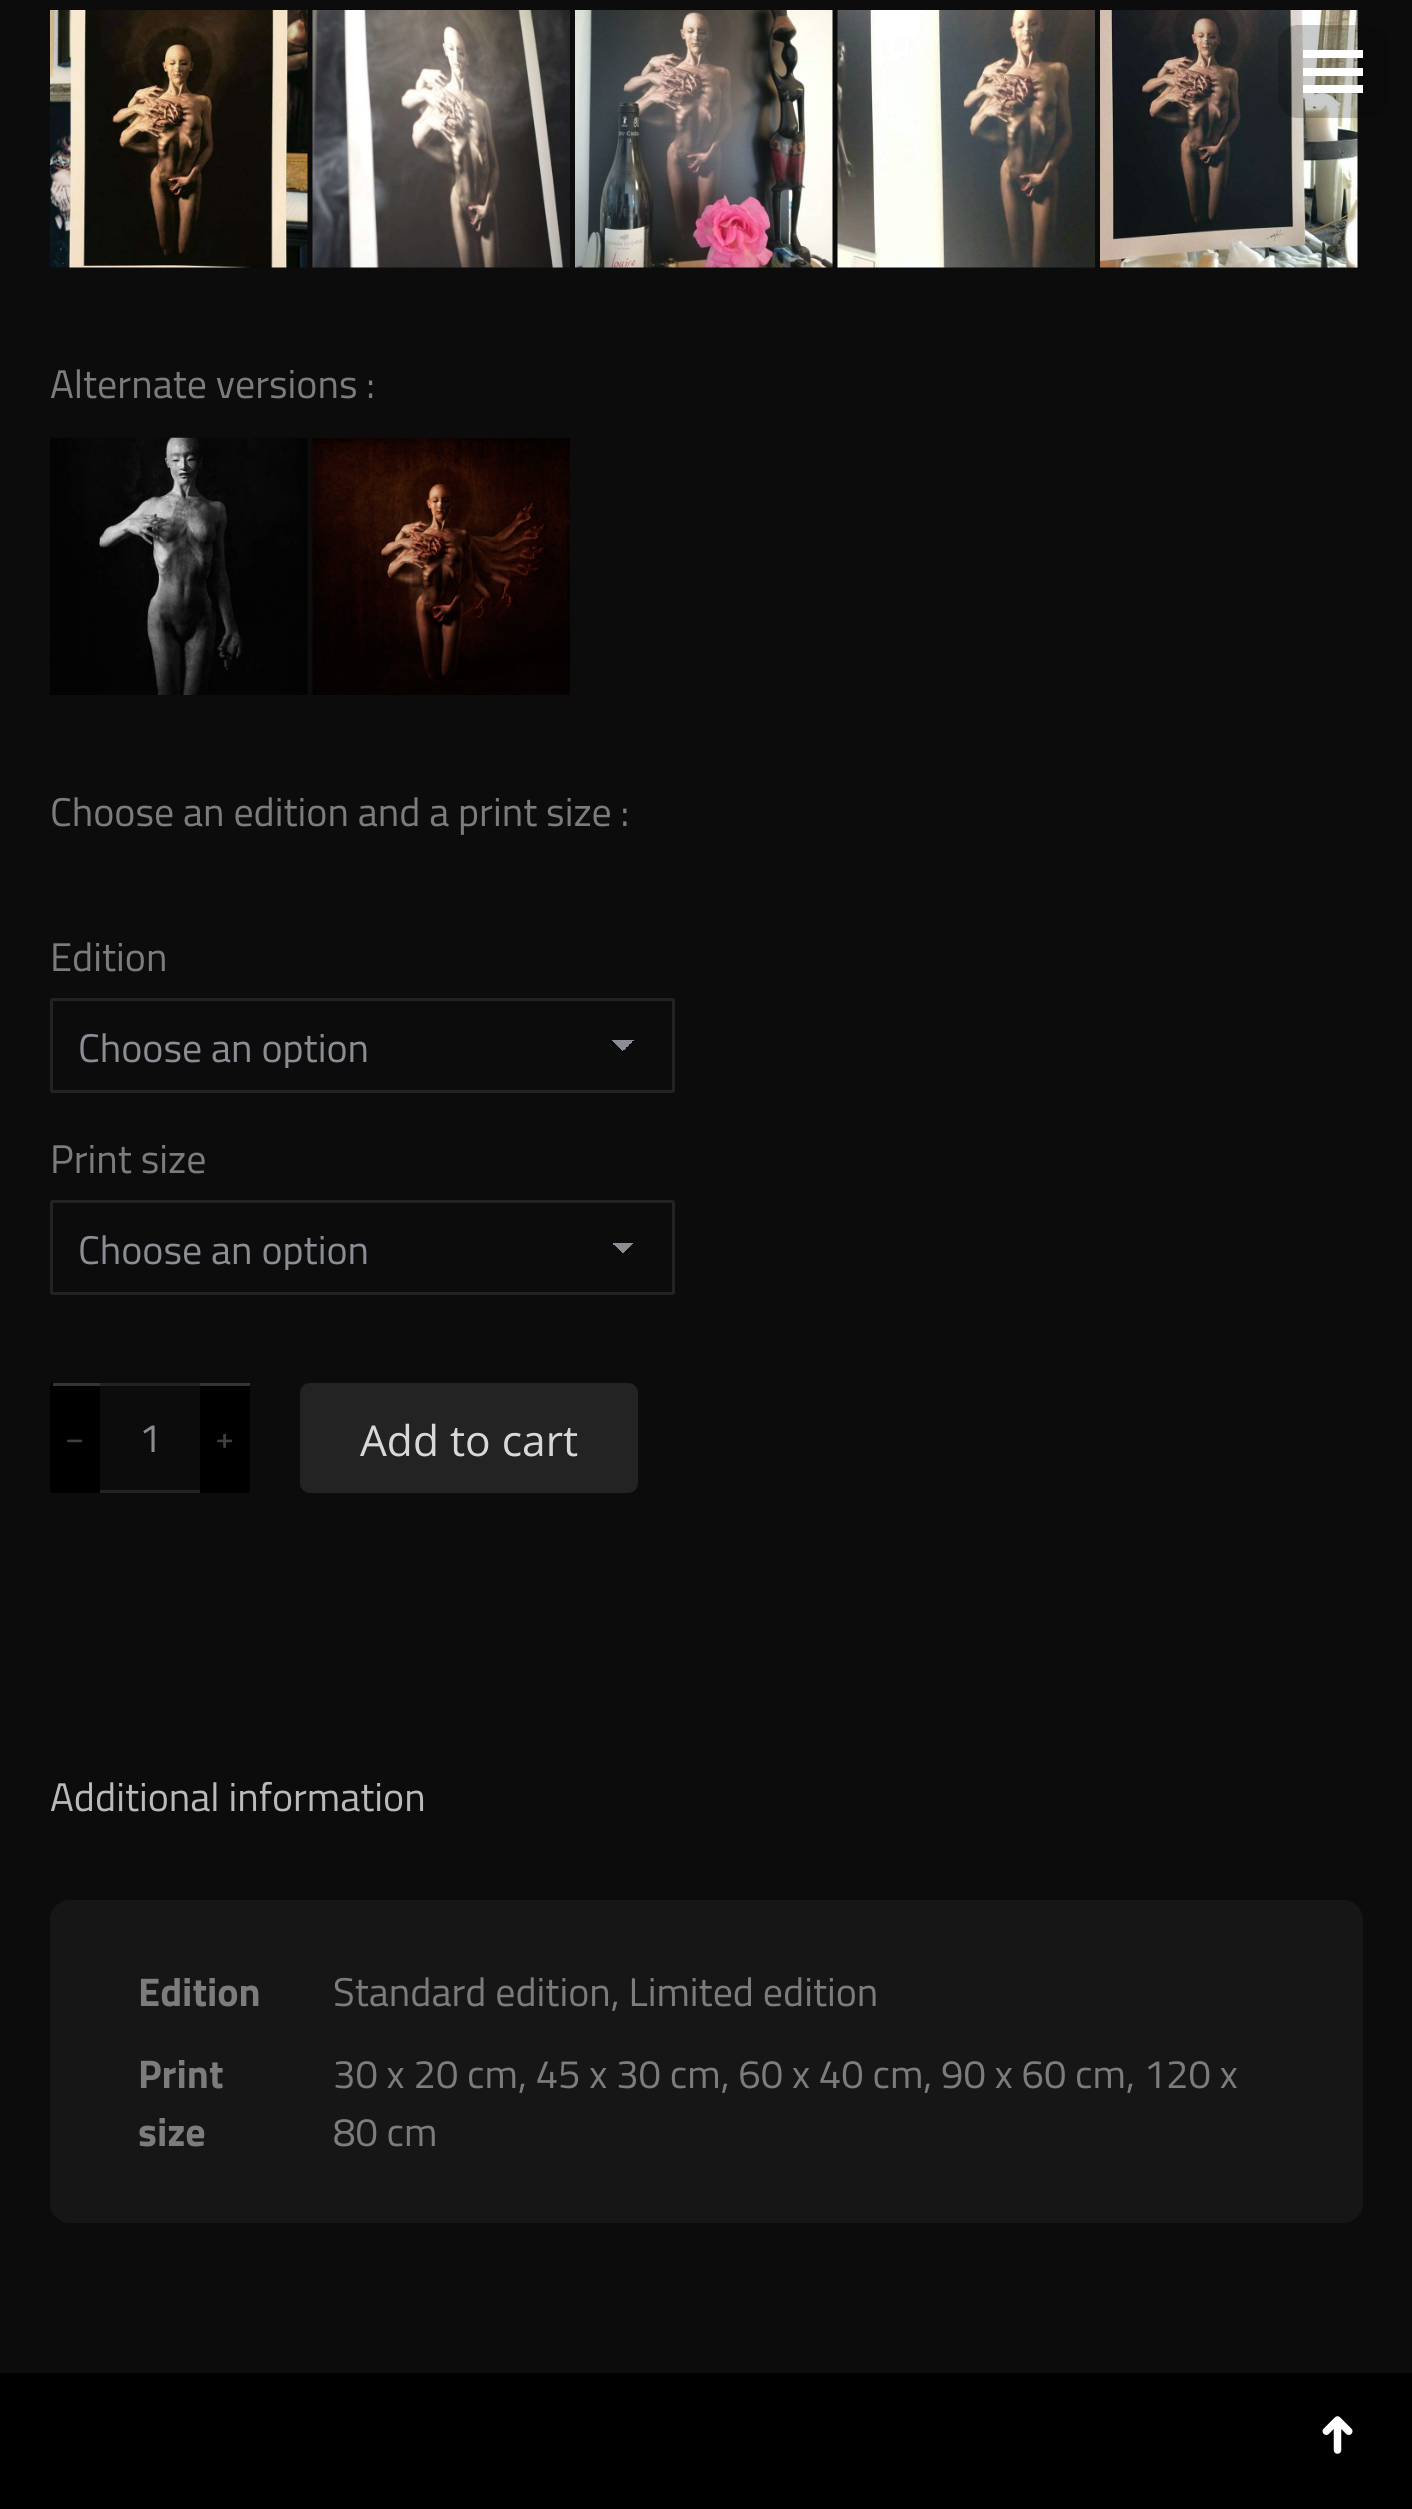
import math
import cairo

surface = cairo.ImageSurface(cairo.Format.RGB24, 1412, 2509)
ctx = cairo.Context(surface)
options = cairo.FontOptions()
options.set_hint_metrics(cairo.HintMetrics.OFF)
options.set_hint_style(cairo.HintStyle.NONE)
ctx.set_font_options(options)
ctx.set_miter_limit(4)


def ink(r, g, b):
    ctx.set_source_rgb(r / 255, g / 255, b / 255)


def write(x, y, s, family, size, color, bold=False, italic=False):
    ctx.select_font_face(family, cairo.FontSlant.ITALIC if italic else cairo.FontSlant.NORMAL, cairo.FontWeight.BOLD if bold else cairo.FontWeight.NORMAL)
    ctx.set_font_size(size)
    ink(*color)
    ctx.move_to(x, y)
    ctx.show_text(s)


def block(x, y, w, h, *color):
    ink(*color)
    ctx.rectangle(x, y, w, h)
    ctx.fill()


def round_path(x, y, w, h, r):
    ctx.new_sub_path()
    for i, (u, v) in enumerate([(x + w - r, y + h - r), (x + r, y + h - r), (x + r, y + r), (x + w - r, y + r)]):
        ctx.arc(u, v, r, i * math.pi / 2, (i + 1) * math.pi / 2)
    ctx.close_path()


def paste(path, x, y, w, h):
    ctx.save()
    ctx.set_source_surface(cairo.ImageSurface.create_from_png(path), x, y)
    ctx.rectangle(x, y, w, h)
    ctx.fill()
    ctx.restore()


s1 = dict(family="Titillium Web", size=40, color=(124, 124, 124))
s2 = dict(family="Titillium Web", size=40, color=(139, 141, 148))
s3 = dict(family="WenQuanYi Zen Hei", size=35, color=(60, 63, 67), bold=True)
s4 = dict(family="Open Sans", size=42.5, color=(216, 216, 216))
s5 = dict(family="Titillium Web", size=40, color=(186, 186, 186))
s6 = dict(family="Titillium Web", size=40, color=(124, 124, 124), bold=True)

ink(12, 12, 12)
ctx.paint()
paste("pic5.png", 1100, 10, 258, 258)
ctx.set_source_rgba(0, 0, 0, 0.2)
round_path(1278, 25, 110, 93, 20)
ctx.fill()
block(1303, 50, 60, 8, 255, 255, 255)
block(1303, 68, 60, 8, 255, 255, 255)
block(1303, 85, 60, 8, 255, 255, 255)
paste("pic1.png", 50, 10, 258, 258)
paste("pic2.png", 312, 10, 258, 258)
paste("pic3.png", 575, 10, 258, 258)
paste("pic4.png", 837, 10, 258, 258)
write(50, 398, "Alternate versions :", **s1)
paste("pic6.png", 50, 437, 258, 258)
paste("pic7.png", 312, 438, 258, 257)
write(50, 826, "Choose an edition and a print size :", **s1)
write(50, 971, "Edition", **s1)
gradient = cairo.LinearGradient(623, 1039, 635, 1051)
gradient.add_color_stop_rgba(0.5, 0.545, 0.553, 0.58, 1)
gradient.add_color_stop_rgba(0.5, 0.047, 0.047, 0.047, 1)
ctx.set_source(gradient)
ctx.rectangle(623, 1040, 11, 10)
ctx.fill()
gradient = cairo.LinearGradient(610, 1051, 623, 1039)
gradient.add_color_stop_rgba(0.5, 0.047, 0.047, 0.047, 1)
gradient.add_color_stop_rgba(0.5, 0.545, 0.553, 0.58, 1)
ctx.set_source(gradient)
ctx.rectangle(612, 1040, 11, 11)
ctx.fill()
round_path(51.5, 999.5, 622, 92, 1)
ink(35, 35, 35)
ctx.set_line_width(3)
ctx.stroke()
ctx.save()
ctx.rectangle(78, 1028, 570, 40)
ctx.clip()
write(78, 1062, "Choose an option", **s2)
ctx.restore()
write(50, 1173, "Print size", **s1)
gradient = cairo.LinearGradient(623, 1241, 635, 1254)
gradient.add_color_stop_rgba(0.5, 0.545, 0.553, 0.58, 1)
gradient.add_color_stop_rgba(0.5, 0.047, 0.047, 0.047, 1)
ctx.set_source(gradient)
ctx.rectangle(623, 1243, 10, 10)
ctx.fill()
gradient = cairo.LinearGradient(610, 1254, 623, 1241)
gradient.add_color_stop_rgba(0.5, 0.047, 0.047, 0.047, 1)
gradient.add_color_stop_rgba(0.5, 0.545, 0.553, 0.58, 1)
ctx.set_source(gradient)
ctx.rectangle(613, 1243, 10, 10)
ctx.fill()
round_path(51.5, 1201.5, 622, 92, 1)
ink(35, 35, 35)
ctx.stroke()
ctx.save()
ctx.rectangle(78, 1230, 570, 40)
ctx.clip()
write(78, 1264, "Choose an option", **s2)
ctx.restore()
ink(0, 0, 0)
ctx.new_path()
ctx.move_to(52.5, 1383)
ctx.line_to(100, 1383)
ctx.line_to(100, 1493)
ctx.line_to(52.5, 1493)
ctx.curve_to(51, 1493, 50, 1492, 50, 1490.5)
ctx.line_to(50, 1385.5)
ctx.curve_to(50, 1384, 51, 1383, 52.5, 1383)
ctx.close_path()
ctx.fill()
block(53, 1383, 47, 3, 52, 53, 55)
write(58, 1452, "﹣", **s3)
block(100, 1383, 100, 3, 35, 35, 35)
block(100, 1490, 100, 3, 35, 35, 35)
write(139, 1452, "1", **s2)
ink(0, 0, 0)
ctx.new_path()
ctx.move_to(200, 1383)
ctx.line_to(247.5, 1383)
ctx.curve_to(249, 1383, 250, 1384, 250, 1385.5)
ctx.line_to(250, 1490.5)
ctx.curve_to(250, 1492, 249, 1493, 247.5, 1493)
ctx.line_to(200, 1493)
ctx.close_path()
ctx.fill()
ctx.set_source_rgba(0.678, 0.69, 0.714, 0.3)
ctx.rectangle(200, 1383, 50, 3)
ctx.fill()
write(208, 1452, "﹢", **s3)
ink(35, 35, 35)
round_path(300, 1383, 338, 110, 10)
ctx.fill()
write(360, 1456, "Add to cart", **s4)
write(50, 1811, "Additional information", **s5)
ink(22, 22, 22)
round_path(50, 1900, 1313, 323, 20)
ctx.fill()
write(138, 2006, "Edition", **s6)
write(333, 2006, "Standard edition, Limited edition", **s1)
write(138, 2088, "Print", **s6)
write(138, 2146, "size", **s6)
write(333, 2088, "30 x 20 cm, 45 x 30 cm, 60 x 40 cm, 90 x 60 cm, 120 x", **s1)
write(333, 2146, "80 cm", **s1)
block(0, 2373, 1412, 136, 0, 0, 0)
paste("pic8.png", 1322, 2416, 31, 38)
surface.write_to_png("screenshot.png")
